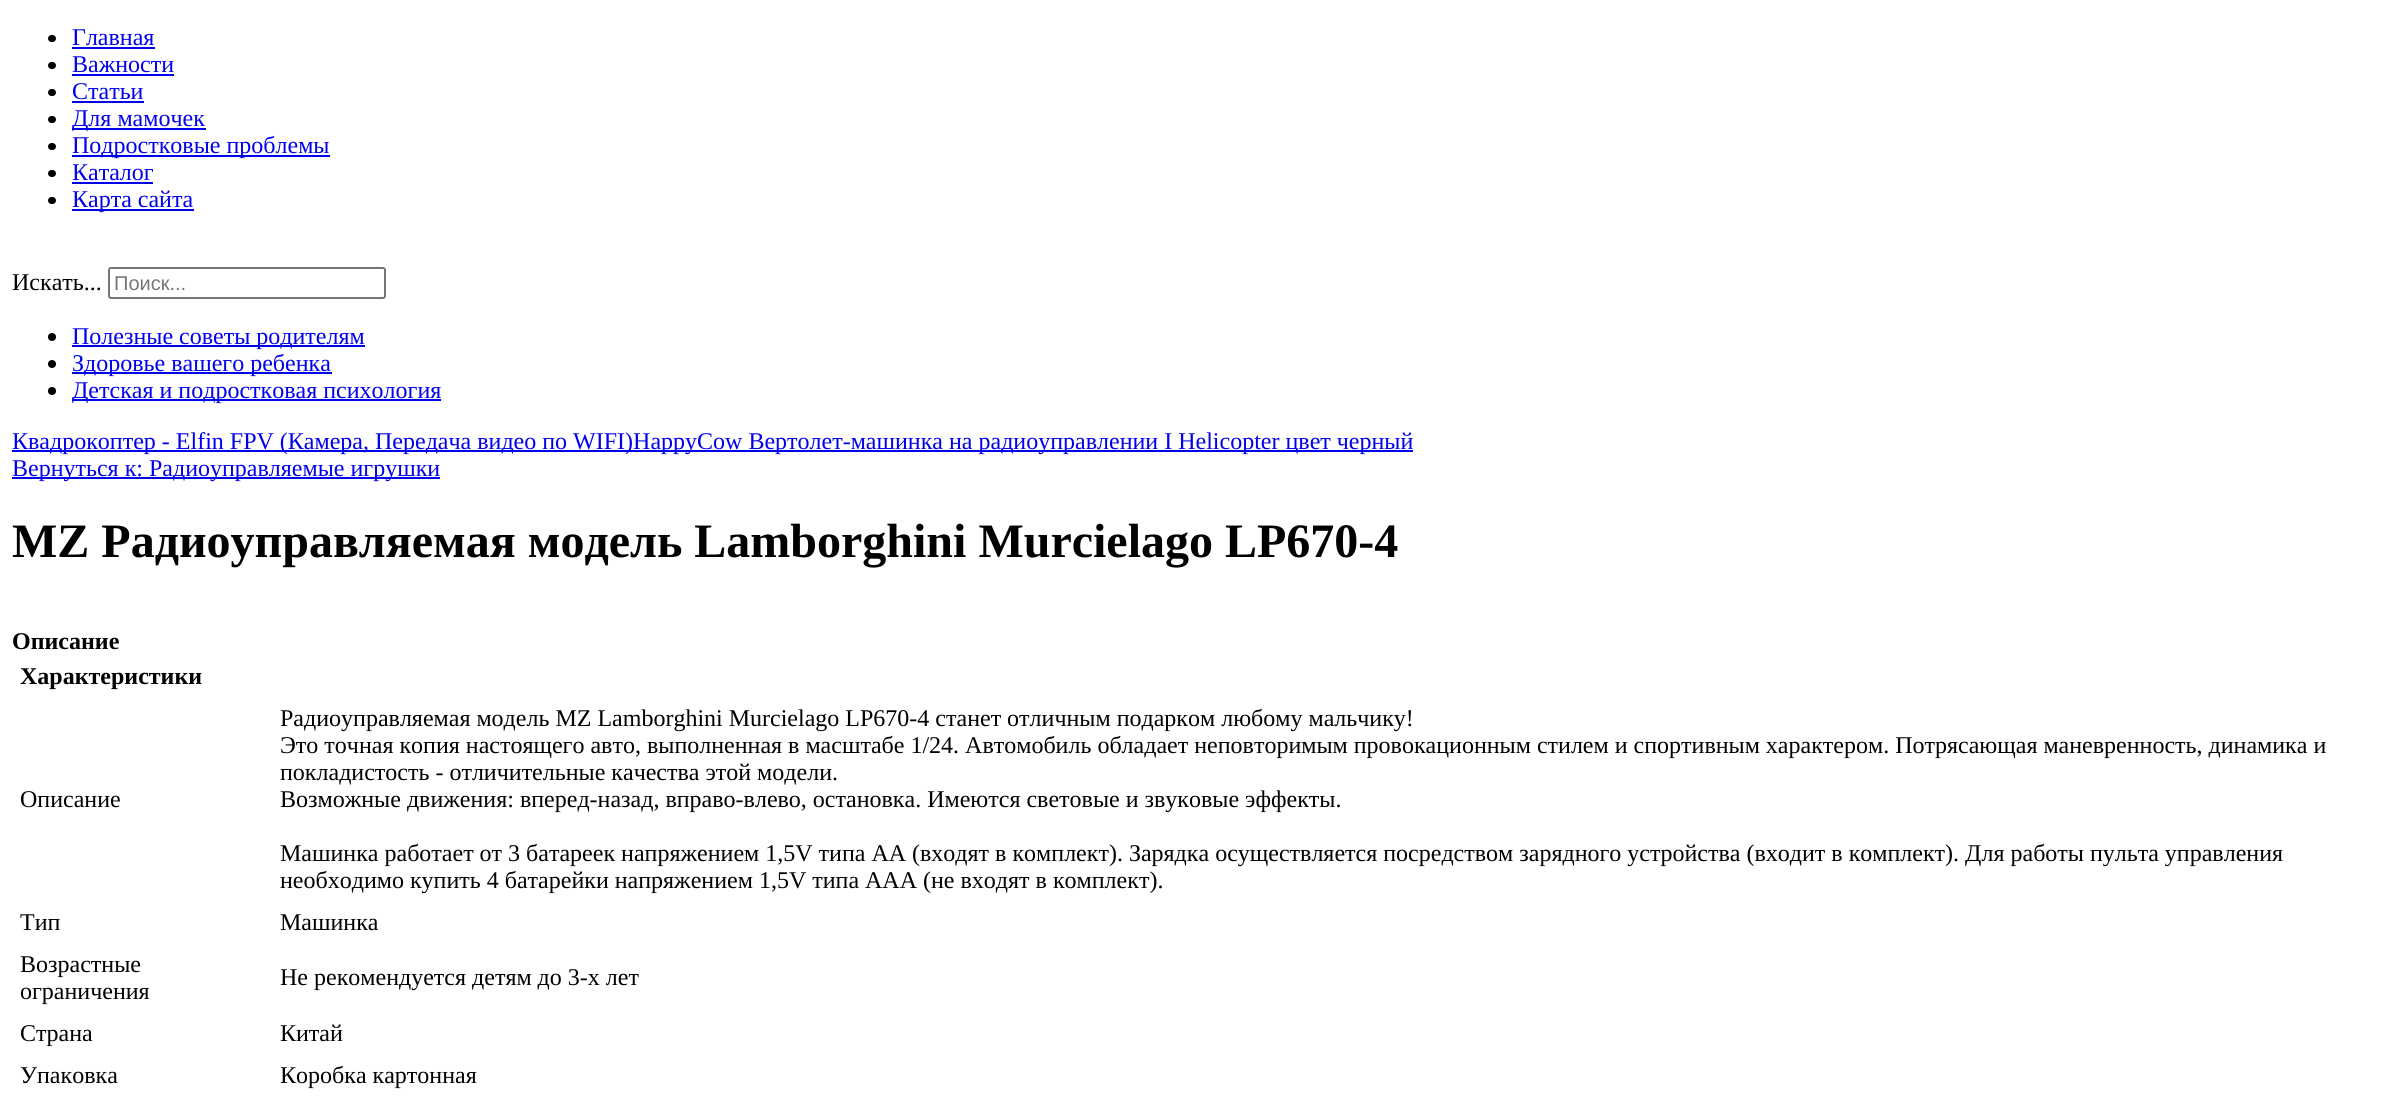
import math
import cairo

surface = cairo.ImageSurface(cairo.Format.RGB24, 2395, 1120)
ctx = cairo.Context(surface)
options = cairo.FontOptions()
options.set_hint_metrics(cairo.HintMetrics.OFF)
options.set_hint_style(cairo.HintStyle.NONE)
ctx.set_font_options(options)
ctx.set_miter_limit(4)


def ink(r, g, b):
    ctx.set_source_rgb(r / 255, g / 255, b / 255)


def write(x, y, s, family, size, color, bold=False, italic=False):
    ctx.select_font_face(family, cairo.FontSlant.ITALIC if italic else cairo.FontSlant.NORMAL, cairo.FontWeight.BOLD if bold else cairo.FontWeight.NORMAL)
    ctx.set_font_size(size)
    ink(*color)
    ctx.move_to(x, y)
    ctx.show_text(s)


def block(x, y, w, h, *color):
    ink(*color)
    ctx.rectangle(x, y, w, h)
    ctx.fill()


def round_path(x, y, w, h, r):
    ctx.new_sub_path()
    for i, (u, v) in enumerate([(x + w - r, y + h - r), (x + r, y + h - r), (x + r, y + r), (x + w - r, y + r)]):
        ctx.arc(u, v, r, i * math.pi / 2, (i + 1) * math.pi / 2)
    ctx.close_path()


s1 = dict(family="Liberation Serif", size=24, color=(0, 0, 238))
s2 = dict(family="Liberation Serif", size=24, color=(0, 0, 0))
s3 = dict(family="Liberation Sans", size=20, color=(117, 117, 117))
s4 = dict(family="Liberation Serif", size=48, color=(0, 0, 0), bold=True)
s5 = dict(family="Liberation Serif", size=24, color=(0, 0, 0), bold=True)

ink(255, 255, 255)
ctx.paint()
ink(0, 0, 0)
round_path(48, 35, 8, 7, 3.5)
ctx.fill()
write(72, 45, "Главная", **s1)
block(72, 47, 83, 2, 0, 0, 238)
ink(0, 0, 0)
round_path(48, 62, 8, 7, 3.5)
ctx.fill()
write(72, 72, "Важности", **s1)
block(72, 74, 102, 2, 0, 0, 238)
ink(0, 0, 0)
round_path(48, 89, 8, 7, 3.5)
ctx.fill()
write(72, 99, "Статьи", **s1)
block(72, 101, 72, 2, 0, 0, 238)
ink(0, 0, 0)
round_path(48, 116, 8, 7, 3.5)
ctx.fill()
block(72, 128, 134, 2, 0, 0, 238)
write(72, 126, "Для мамочек", **s1)
ink(0, 0, 0)
round_path(48, 143, 8, 7, 3.5)
ctx.fill()
block(72, 155, 258, 2, 0, 0, 238)
write(72, 153, "Подростковые проблемы", **s1)
ink(0, 0, 0)
round_path(48, 170, 8, 7, 3.5)
ctx.fill()
write(72, 180, "Каталог", **s1)
block(72, 182, 81, 2, 0, 0, 238)
ink(0, 0, 0)
round_path(48, 197, 8, 7, 3.5)
ctx.fill()
block(72, 209, 122, 2, 0, 0, 238)
write(72, 207, "Карта сайта", **s1)
write(12, 290, "Искать...", **s2)
round_path(109, 268, 276, 30, 2)
ink(118, 118, 118)
ctx.stroke()
write(114, 290, "Поиск...", **s3)
ink(0, 0, 0)
ctx.new_path()
ctx.arc(52, 337, 4, 0, 2 * math.pi)
ctx.fill()
block(72, 345, 293, 2, 0, 0, 238)
write(72, 344, "Полезные советы родителям", **s1)
ink(0, 0, 0)
ctx.new_path()
ctx.arc(52, 364, 4, 0, 2 * math.pi)
ctx.fill()
block(72, 372, 260, 2, 0, 0, 238)
write(72, 371, "Здоровье вашего ребенка", **s1)
ink(0, 0, 0)
ctx.new_path()
ctx.arc(52, 391, 4, 0, 2 * math.pi)
ctx.fill()
block(72, 399, 369, 2, 0, 0, 238)
write(72, 398, "Детская и подростковая психология", **s1)
block(12, 450, 1401, 2, 0, 0, 238)
write(12, 449, "Квадрокоптер - Elfin FPV (Камера, Передача видео по WIFI)HappyCow Вертолет-машинка на радиоуправлении I Helicopter цвет черный", **s1)
block(12, 477, 428, 2, 0, 0, 238)
write(12, 476, "Вернуться к: Радиоуправляемые игрушки", **s1)
write(12, 557, "MZ Радиоуправляемая модель Lamborghini Murcielago LP670-4", **s4)
write(12, 649, "Описание", **s5)
write(20, 684, "Характеристики", **s5)
write(20, 807, "Описание", **s2)
write(280, 726, "Радиоуправляемая модель MZ Lamborghini Murcielago LP670-4 станет отличным подарком любому мальчику!", **s2)
write(280, 753, "Это точная копия настоящего авто, выполненная в масштабе 1/24. Автомобиль обладает неповторимым провокационным стилем и спортивным характером. Потрясающая маневренность, динамика и", **s2)
write(280, 780, "покладистость - отличительные качества этой модели.", **s2)
write(280, 807, "Возможные движения: вперед-назад, вправо-влево, остановка. Имеются световые и звуковые эффекты.", **s2)
write(280, 861, "Машинка работает от 3 батареек напряжением 1,5V типа АА (входят в комплект). Зарядка осуществляется посредством зарядного устройства (входит в комплект). Для работы пульта управления", **s2)
write(280, 888, "необходимо купить 4 батарейки напряжением 1,5V типа ААА (не входят в комплект).", **s2)
write(20, 930, "Тип", **s2)
write(280, 930, "Машинка", **s2)
write(20, 972, "Возрастные", **s2)
write(20, 999, "ограничения", **s2)
write(280, 985, "Не рекомендуется детям до 3-х лет", **s2)
write(20, 1041, "Страна", **s2)
write(280, 1041, "Китай", **s2)
write(20, 1083, "Упаковка", **s2)
write(280, 1083, "Коробка картонная", **s2)
surface.write_to_png("screenshot.png")
